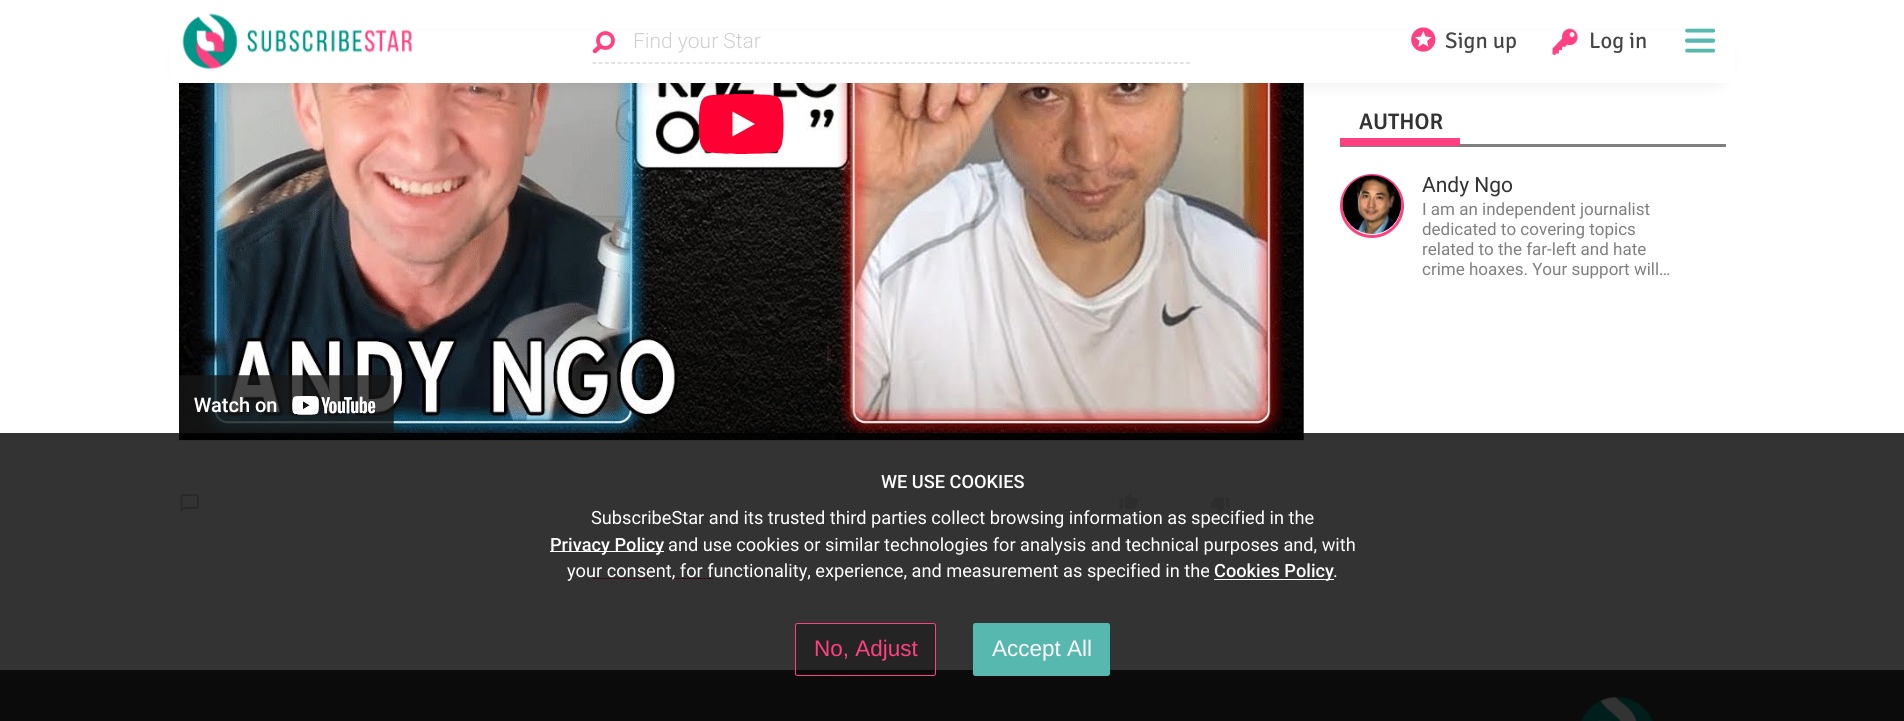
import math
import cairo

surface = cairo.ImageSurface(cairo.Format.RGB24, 1904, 721)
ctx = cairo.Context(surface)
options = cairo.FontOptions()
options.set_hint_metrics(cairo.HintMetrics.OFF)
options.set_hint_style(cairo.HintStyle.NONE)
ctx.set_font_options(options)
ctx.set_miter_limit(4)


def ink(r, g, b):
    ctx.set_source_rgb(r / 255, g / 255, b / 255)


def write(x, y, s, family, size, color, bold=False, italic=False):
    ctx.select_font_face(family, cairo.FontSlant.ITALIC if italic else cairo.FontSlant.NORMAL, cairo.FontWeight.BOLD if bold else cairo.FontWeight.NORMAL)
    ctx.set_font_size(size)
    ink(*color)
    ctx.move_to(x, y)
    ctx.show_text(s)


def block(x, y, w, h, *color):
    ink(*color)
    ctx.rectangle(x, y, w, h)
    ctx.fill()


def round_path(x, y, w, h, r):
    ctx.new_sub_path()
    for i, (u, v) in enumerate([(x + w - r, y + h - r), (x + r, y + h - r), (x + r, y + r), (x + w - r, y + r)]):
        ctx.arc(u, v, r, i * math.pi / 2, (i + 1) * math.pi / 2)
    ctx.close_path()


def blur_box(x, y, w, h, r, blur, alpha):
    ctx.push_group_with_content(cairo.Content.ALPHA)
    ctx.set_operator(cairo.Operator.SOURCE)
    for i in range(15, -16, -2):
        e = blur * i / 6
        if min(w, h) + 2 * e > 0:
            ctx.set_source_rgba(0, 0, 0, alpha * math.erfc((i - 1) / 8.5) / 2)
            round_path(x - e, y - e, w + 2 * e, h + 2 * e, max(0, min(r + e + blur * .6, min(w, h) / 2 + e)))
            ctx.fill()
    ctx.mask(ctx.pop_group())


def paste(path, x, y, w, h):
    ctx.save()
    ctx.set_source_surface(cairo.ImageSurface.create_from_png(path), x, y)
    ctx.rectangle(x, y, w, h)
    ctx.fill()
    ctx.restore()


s1 = dict(family="Roboto Light", size=21, color=(207, 207, 207))
s2 = dict(family="Signika Negative", size=22.5, color=(69, 67, 67))
s3 = dict(family="Signika Negative SemiBold", size=22.5, color=(51, 51, 51))
s4 = dict(family="Roboto", size=21, color=(51, 51, 51))
s5 = dict(family="Roboto", size=17, color=(128, 128, 128))
s6 = dict(family="Roboto Medium", size=18.2, color=(255, 255, 255))
s7 = dict(family="Roboto", size=18.2, color=(255, 255, 255))
s8 = dict(family="Liberation Sans", size=22.5, color=(255, 64, 129))
s9 = dict(family="Liberation Sans", size=22.5, color=(255, 255, 255))

ink(255, 255, 255)
ctx.paint()
paste("pic5.png", 179, 83, 1125, 358)
ink(0, 0, 0)
blur_box(179, 41, 1547, 42, 13, 7.5, 0.1)
block(170, 31, 1565, 52, 255, 255, 255)
paste("pic1.png", 182, 13, 231, 56)
ctx.new_path()
ctx.move_to(592.5, 63)
ctx.line_to(1190, 63)
ink(207, 207, 207)
ctx.set_line_width(1.2)
ctx.set_dash([3.75, 2.5])
ctx.stroke()
ctx.arc(605.5, 40.5, 7.5, 0, 2 * math.pi)
ink(255, 64, 129)
ctx.set_line_width(3.8)
ctx.set_dash([])
ctx.stroke()
ctx.new_path()
ctx.move_to(595, 51)
ctx.line_to(600, 46.5)
ctx.set_line_width(4.5)
ctx.set_line_cap(cairo.LineCap.ROUND)
ctx.stroke()
write(633, 48, "Find your Star", **s1)
paste("pic2.png", 1411, 27, 25, 25)
write(1445, 48, "Sign up", **s2)
paste("pic3.png", 1552, 28, 26, 27)
write(1589, 48, "Log in", **s2)
paste("pic4.png", 1685, 28, 31, 25)
block(179, 459, 1125, 1, 246, 246, 246)
paste("pic6.png", 180, 494, 19, 19)
paste("pic7.png", 1119, 492, 19, 17)
paste("pic8.png", 1210, 497, 20, 17)
block(593, 578, 55, 1, 255, 64, 129)
block(669, 578, 44, 1, 255, 64, 129)
block(1340, 144, 386, 3, 128, 128, 128)
write(1359, 129, "AUTHOR", **s3)
block(1340, 138, 120, 8, 255, 64, 129)
ctx.new_path()
ctx.arc(1372, 206, 30.5, 0, 2 * math.pi)
ctx.set_line_width(3)
ctx.set_line_cap(cairo.LineCap.BUTT)
ctx.stroke()
paste("pic9.png", 1342, 175, 60, 59)
write(1422, 192, "Andy Ngo", **s4)
write(1422, 215, "I am an independent journalist", **s5)
write(1422, 235, "dedicated to covering topics", **s5)
write(1422, 255, "related to the far-left and hate", **s5)
write(1422, 275, "crime hoaxes. Your support will…", **s5)
block(0, 670, 1904, 51, 54, 54, 54)
paste("pic10.png", 1581, 696, 72, 25)
ctx.set_source_rgba(0, 0, 0, 0.8)
ctx.rectangle(0, 433, 1904, 288)
ctx.fill()
write(881, 488, "WE USE COOKIES", **s6)
write(591, 524, "SubscribeStar and its trusted third parties collect browsing information as specified in the", **s7)
block(550, 551, 114, 1, 255, 255, 255)
write(550, 551, "Privacy Policy", **s6)
write(668, 551, "and use cookies or similar technologies for analysis and technical purposes and, with", **s7)
write(567, 577, "your consent, for functionality, experience, and measurement as specified in the", **s7)
block(1214, 579, 120, 1, 255, 255, 255)
write(1214, 577, "Cookies Policy", **s6)
write(1333, 577, ".", **s7)
ctx.set_source_rgba(0, 0, 0, 0.3)
round_path(795.5, 623.5, 140, 52, 2)
ctx.fill_preserve()
ink(255, 64, 129)
ctx.set_line_width(1)
ctx.stroke()
write(814, 656, "No, Adjust", **s8)
ink(86, 184, 174)
round_path(973.5, 623.5, 136, 52, 2)
ctx.fill_preserve()
ctx.stroke()
write(992, 656, "Accept All", **s9)
surface.write_to_png("screenshot.png")
